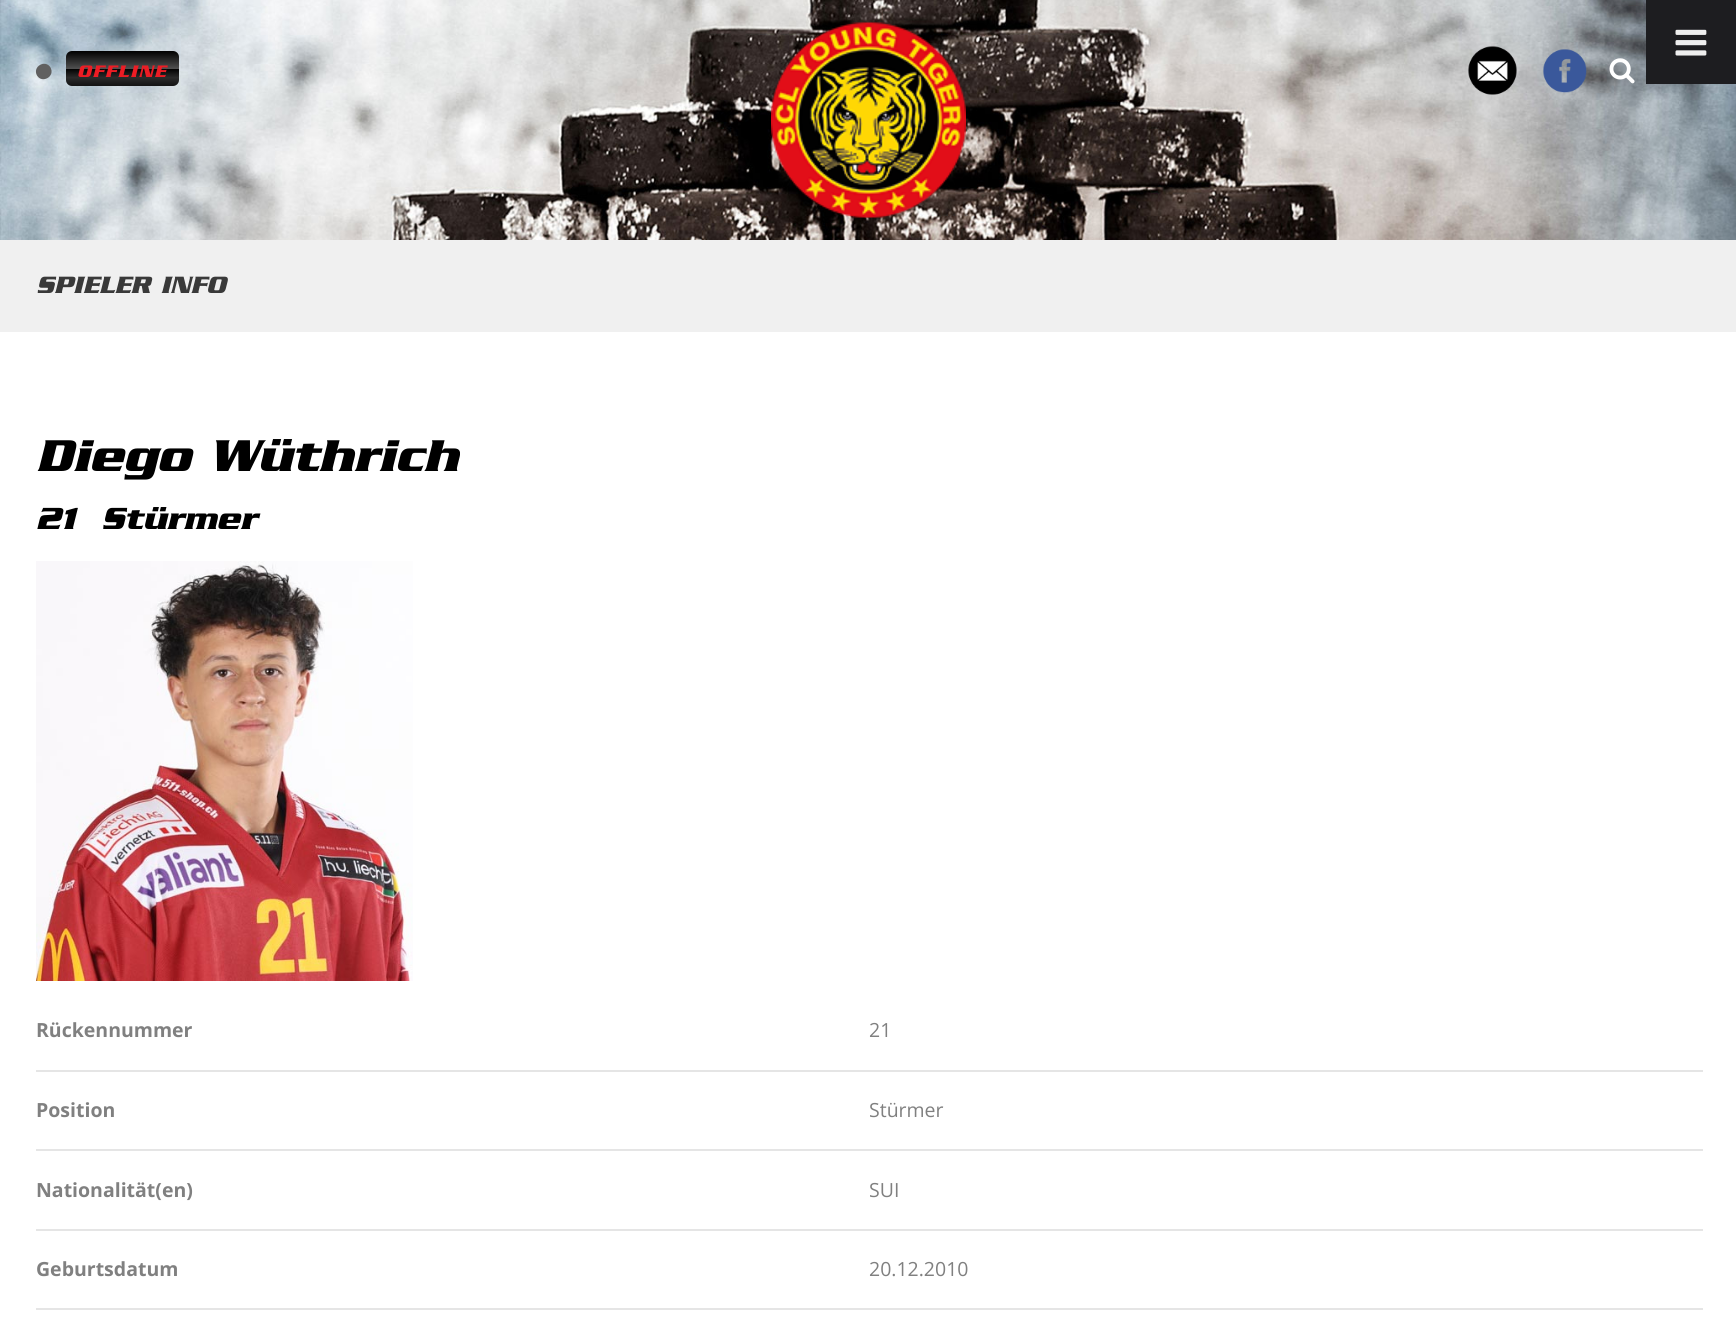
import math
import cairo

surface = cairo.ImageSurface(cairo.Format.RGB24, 1736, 1333)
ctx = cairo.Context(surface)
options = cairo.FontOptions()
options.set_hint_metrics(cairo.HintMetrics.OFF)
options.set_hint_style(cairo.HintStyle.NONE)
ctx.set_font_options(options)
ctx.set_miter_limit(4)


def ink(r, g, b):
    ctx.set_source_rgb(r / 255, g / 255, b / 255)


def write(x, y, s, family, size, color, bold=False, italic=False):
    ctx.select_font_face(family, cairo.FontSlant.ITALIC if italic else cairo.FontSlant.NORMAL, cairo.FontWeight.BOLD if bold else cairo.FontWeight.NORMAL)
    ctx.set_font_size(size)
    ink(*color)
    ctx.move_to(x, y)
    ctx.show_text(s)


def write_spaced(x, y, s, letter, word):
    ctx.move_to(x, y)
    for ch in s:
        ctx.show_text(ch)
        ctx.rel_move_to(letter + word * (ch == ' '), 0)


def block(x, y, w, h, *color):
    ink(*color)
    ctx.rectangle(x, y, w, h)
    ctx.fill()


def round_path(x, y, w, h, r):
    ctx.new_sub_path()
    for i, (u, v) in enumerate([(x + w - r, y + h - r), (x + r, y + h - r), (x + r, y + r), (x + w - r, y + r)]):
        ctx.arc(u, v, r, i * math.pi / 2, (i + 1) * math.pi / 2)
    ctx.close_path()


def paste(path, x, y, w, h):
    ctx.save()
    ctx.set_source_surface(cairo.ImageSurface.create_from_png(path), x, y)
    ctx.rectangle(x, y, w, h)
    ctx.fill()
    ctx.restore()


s1 = dict(family="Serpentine", size=25.5, color=(57, 57, 57), bold=True, italic=True)
s2 = dict(family="Serpentine", size=48, color=(0, 0, 0), bold=True, italic=True)
s3 = dict(family="Serpentine", size=33, color=(0, 0, 0), bold=True, italic=True)
s4 = dict(family="Open Sans", size=19.5, color=(128, 128, 128), bold=True)
s5 = dict(family="Open Sans", size=19.5, color=(128, 128, 128))

ink(255, 255, 255)
ctx.paint()
paste("pic2.png", 0, 0, 1736, 240)
block(1646, 0, 90, 84, 29, 29, 32)
paste("pic1.png", 1675, 29, 32, 27)
ink(96, 96, 96)
ctx.new_path()
ctx.move_to(50.5, 67.5)
ctx.curve_to(55.5, 76.5, 42, 84, 37, 75.5)
ctx.curve_to(32, 66.5, 45.5, 59, 50.5, 67.5)
ctx.close_path()
ctx.fill()
gradient = cairo.LinearGradient(122, 51, 122, 86)
gradient.add_color_stop_rgba(0, 0, 0, 0, 1)
gradient.add_color_stop_rgba(0.5, 0.31, 0.31, 0.31, 1)
gradient.add_color_stop_rgba(0.51, 0, 0, 0, 1)
gradient.add_color_stop_rgba(0.6, 0.067, 0.067, 0.067, 1)
gradient.add_color_stop_rgba(0.76, 0.169, 0.169, 0.169, 1)
gradient.add_color_stop_rgba(0.91, 0.11, 0.11, 0.11, 1)
gradient.add_color_stop_rgba(1, 0.075, 0.075, 0.075, 1)
ctx.set_source(gradient)
round_path(66, 51, 113, 35, 6)
ctx.fill()
ctx.select_font_face("Serpentine", cairo.FontSlant.ITALIC, cairo.FontWeight.BOLD)
ctx.set_font_size(18)
ink(237, 28, 36)
write_spaced(77, 77, "OFFLINE", 1.5, 0)
paste("pic3.png", 1468, 46, 49, 49)
paste("pic4.png", 1543, 49, 44, 44)
paste("pic5.png", 771, 22, 195, 196)
paste("pic6.png", 1609, 58, 26, 26)
block(0, 240, 1736, 92, 240, 240, 240)
write(36, 293, "SPIELER INFO", **s1)
write(36, 471, "Diego Wüthrich", **s2)
write(36, 529, "21", **s3)
write(101, 529, "Stürmer", **s3)
paste("pic7.png", 36, 561, 377, 420)
write(36, 1037, "Rückennummer", **s4)
block(36, 1070, 1667, 2, 229, 229, 229)
write(869, 1037, "21", **s5)
write(36, 1117, "Position", **s4)
block(36, 1149, 1667, 2, 229, 229, 229)
write(869, 1117, "Stürmer", **s5)
write(36, 1197, "Nationalität(en)", **s4)
block(36, 1229, 1667, 2, 229, 229, 229)
write(869, 1197, "SUI", **s5)
write(36, 1276, "Geburtsdatum", **s4)
block(36, 1308, 1667, 2, 229, 229, 229)
write(869, 1276, "20.12.2010", **s5)
surface.write_to_png("screenshot.png")
